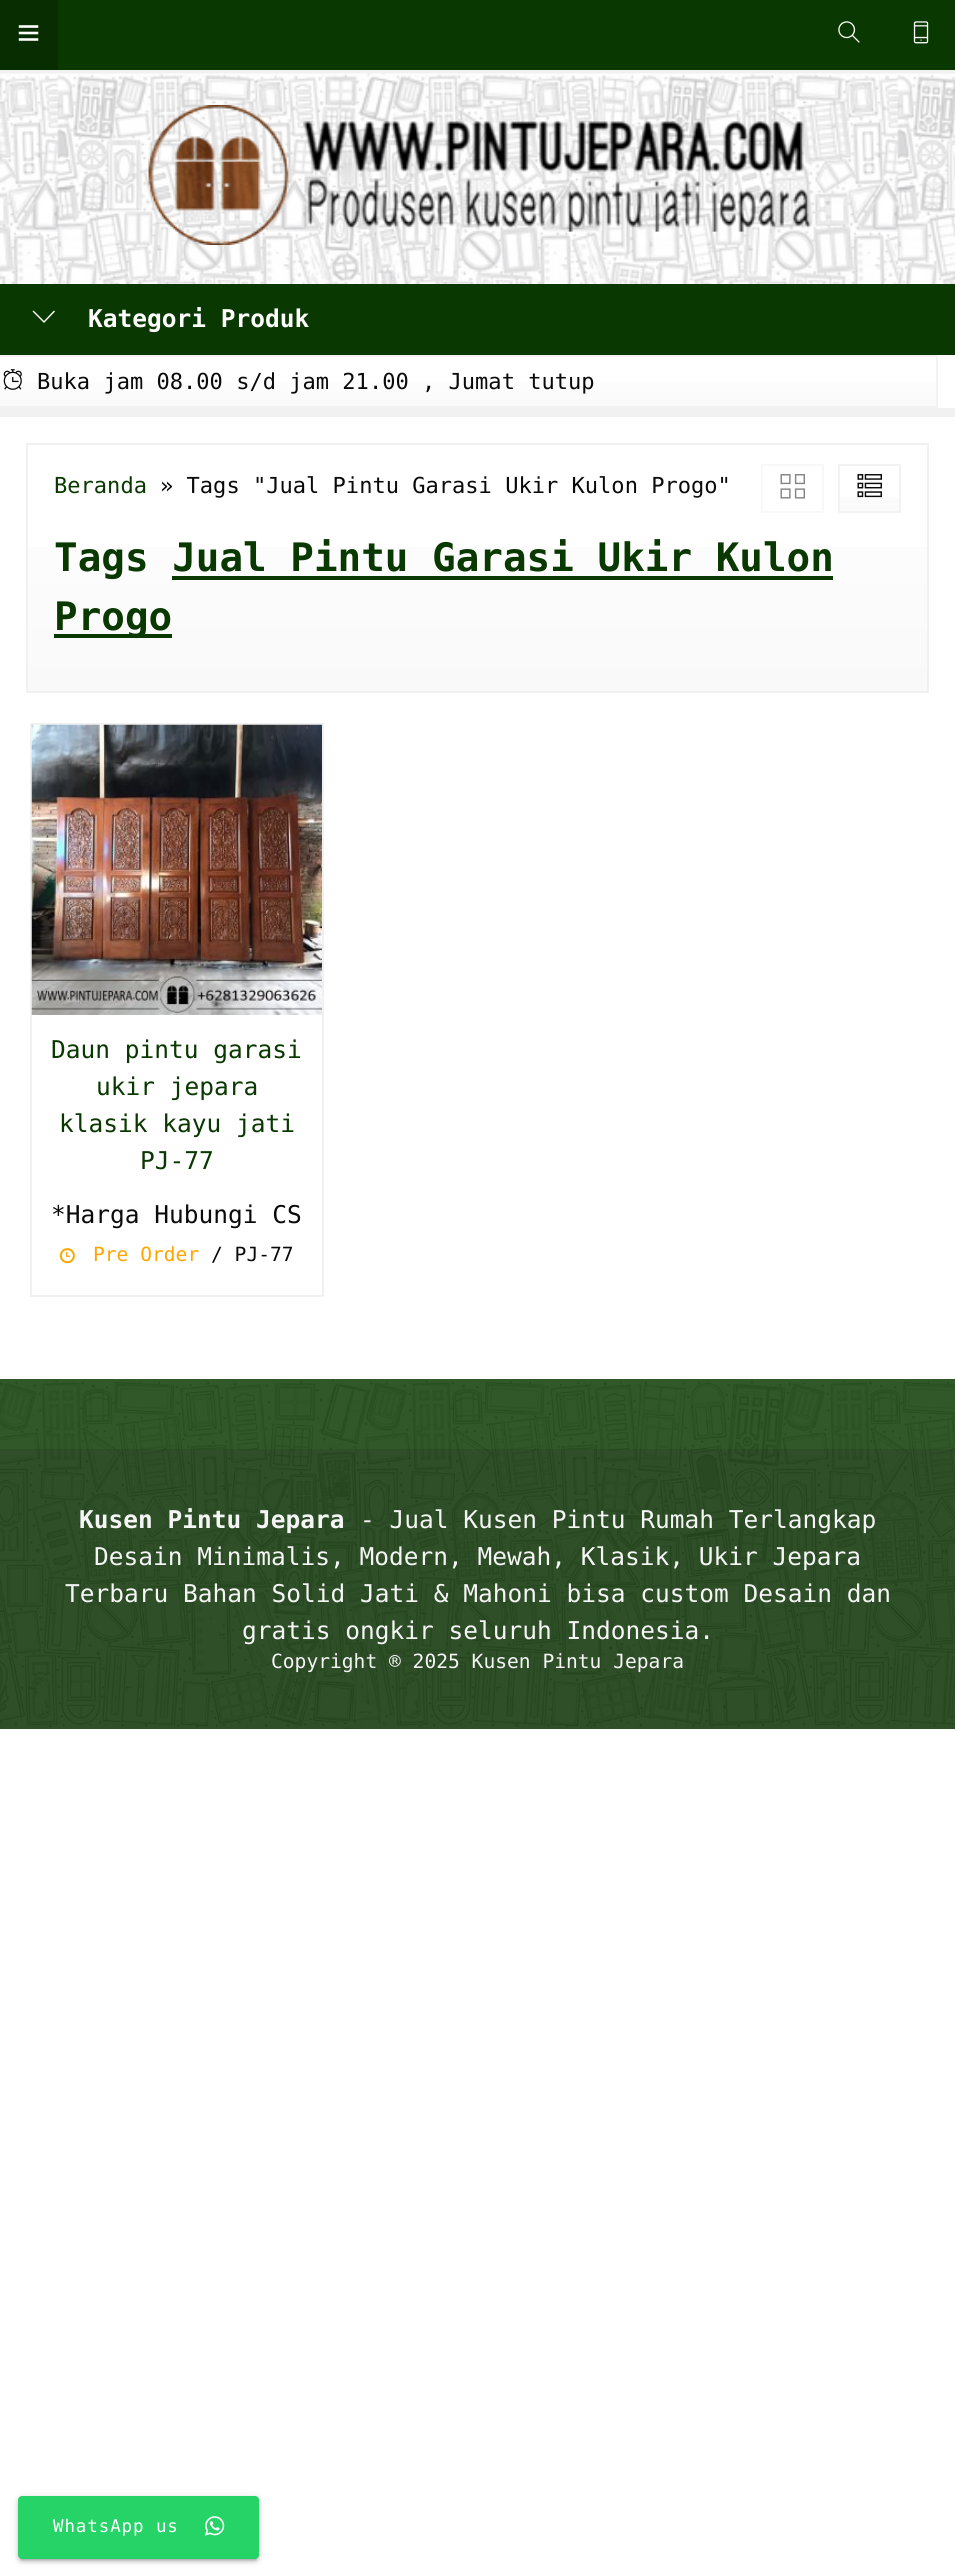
import math
import cairo

surface = cairo.ImageSurface(cairo.Format.RGB24, 955, 2575)
ctx = cairo.Context(surface)
options = cairo.FontOptions()
options.set_hint_metrics(cairo.HintMetrics.OFF)
options.set_hint_style(cairo.HintStyle.NONE)
ctx.set_font_options(options)
ctx.set_miter_limit(4)


def ink(r, g, b):
    ctx.set_source_rgb(r / 255, g / 255, b / 255)


def write(x, y, s, family, size, color, bold=False, italic=False):
    ctx.select_font_face(family, cairo.FontSlant.ITALIC if italic else cairo.FontSlant.NORMAL, cairo.FontWeight.BOLD if bold else cairo.FontWeight.NORMAL)
    ctx.set_font_size(size)
    ink(*color)
    ctx.move_to(x, y)
    ctx.show_text(s)


def write_spaced(x, y, s, letter, word):
    ctx.move_to(x, y)
    for ch in s:
        ctx.show_text(ch)
        ctx.rel_move_to(letter + word * (ch == ' '), 0)


def block(x, y, w, h, *color):
    ink(*color)
    ctx.rectangle(x, y, w, h)
    ctx.fill()


def round_path(x, y, w, h, r):
    ctx.new_sub_path()
    for i, (u, v) in enumerate([(x + w - r, y + h - r), (x + r, y + h - r), (x + r, y + r), (x + w - r, y + r)]):
        ctx.arc(u, v, r, i * math.pi / 2, (i + 1) * math.pi / 2)
    ctx.close_path()


def blur_box(x, y, w, h, r, blur, alpha):
    ctx.push_group_with_content(cairo.Content.ALPHA)
    ctx.set_operator(cairo.Operator.SOURCE)
    for i in range(15, -16, -2):
        e = blur * i / 6
        if min(w, h) + 2 * e > 0:
            ctx.set_source_rgba(0, 0, 0, alpha * math.erfc((i - 1) / 8.5) / 2)
            round_path(x - e, y - e, w + 2 * e, h + 2 * e, max(0, min(r + e + blur * .6, min(w, h) / 2 + e)))
            ctx.fill()
    ctx.mask(ctx.pop_group())


def paste(path, x, y, w, h):
    ctx.save()
    ctx.set_source_surface(cairo.ImageSurface.create_from_png(path), x, y)
    ctx.rectangle(x, y, w, h)
    ctx.fill()
    ctx.restore()


s1 = dict(family="DejaVu Sans Mono", size=24.5, color=(255, 255, 255), bold=True)
s2 = dict(family="DejaVu Sans Mono", size=22.05, color=(10, 10, 10))
s3 = dict(family="DejaVu Sans Mono", size=22.05, color=(9, 56, 0))
s4 = dict(family="DejaVu Sans Mono", size=39.25, color=(9, 56, 0), bold=True)
s5 = dict(family="DejaVu Sans Mono", size=24.5, color=(9, 56, 0))
s6 = dict(family="DejaVu Sans Mono", size=24.5, color=(10, 10, 10))
s7 = dict(family="DejaVu Sans Mono", size=19.6, color=(255, 165, 0))
s8 = dict(family="DejaVu Sans Mono", size=19.6, color=(10, 10, 10))
s9 = dict(family="DejaVu Sans Mono", size=24.5, color=(245, 245, 245), bold=True)
s10 = dict(family="DejaVu Sans Mono", size=24.5, color=(245, 245, 245))
s11 = dict(family="DejaVu Sans Mono", size=19.6, color=(245, 245, 245))

ink(255, 255, 255)
ctx.paint()
block(58, 0, 897, 70, 9, 56, 0)
block(0, 0, 58, 70, 7, 45, 0)
paste("pic1.png", 18, 25, 21, 16)
paste("pic2.png", 838, 21, 22, 22)
paste("pic3.png", 913, 21, 16, 23)
block(0, 70, 955, 4, 241, 241, 241)
paste("pic4.png", 0, 73, 955, 211)
paste("pic5.png", 148, 105, 663, 140)
block(0, 284, 955, 71, 9, 56, 0)
ink(255, 255, 255)
ctx.new_path()
ctx.move_to(55, 311.5)
ctx.line_to(44, 323)
ctx.line_to(32.5, 311.5)
ctx.line_to(33.5, 310.5)
ctx.line_to(44, 321)
ctx.line_to(54, 310.5)
ctx.close_path()
ctx.fill()
write(88, 327, "Kategori Produk", **s1)
gradient = cairo.LinearGradient(460, 406, 460, 357)
gradient.add_color_stop_rgba(0, 0.98, 0.98, 0.98, 1)
gradient.add_color_stop_rgba(1, 1, 1, 1, 1)
ctx.set_source(gradient)
ctx.rectangle(0, 382, 936, 24)
ctx.fill()
ctx.rectangle(-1, 356, 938, 51)
ink(242, 242, 242)
ctx.stroke()
paste("pic6.png", 3, 369, 19, 21)
write(37, 389, "Buka jam 08.00 s/d jam 21.00 , Jumat tutup", **s2)
block(0, 408, 955, 9, 241, 241, 241)
gradient = cairo.LinearGradient(478, 444, 478, 691)
gradient.add_color_stop_rgba(0, 1, 1, 1, 1)
gradient.add_color_stop_rgba(1, 0.976, 0.976, 0.976, 1)
ctx.set_source(gradient)
ctx.rectangle(28, 547, 899, 144)
ctx.fill()
ctx.rectangle(27, 444, 901, 248)
ink(241, 241, 241)
ctx.stroke()
write(54, 493, "Beranda", **s3)
write(160, 493, "» Tags \"Jual Pintu Garasi Ukir Kulon Progo\"", **s2)
ctx.rectangle(762, 465, 61, 47)
ink(248, 248, 248)
ctx.stroke()
gradient = cairo.LinearGradient(870, 511, 870, 466)
gradient.add_color_stop_rgba(0, 0.98, 0.98, 0.98, 1)
gradient.add_color_stop_rgba(1, 1, 1, 1, 1)
ctx.set_source(gradient)
ctx.rectangle(840, 497, 59, 14)
ctx.fill()
ctx.rectangle(839, 465, 61, 47)
ink(242, 242, 242)
ctx.stroke()
paste("pic7.png", 780, 474, 25, 25)
paste("pic8.png", 857, 474, 25, 24)
write(54, 571, "Tags Jual Pintu Garasi Ukir Kulon", **s4)
block(54, 634, 118, 4, 9, 56, 0)
write(54, 630, "Progo", **s4)
block(172, 576, 661, 4, 9, 56, 0)
ctx.rectangle(31, 724, 292, 572)
ink(241, 241, 241)
ctx.stroke()
paste("pic9.png", 31, 724, 291, 291)
write(51, 1058, "Daun pintu garasi", **s5)
write(96, 1095, "ukir jepara", **s5)
write(59, 1132, "klasik kayu jati", **s5)
write(140, 1169, "PJ-77", **s5)
write(51, 1223, "*Harga Hubungi CS", **s6)
paste("pic10.png", 59, 1248, 16, 16)
write(93, 1261, "Pre Order", **s7)
write(211, 1261, "/ PJ-77", **s8)
block(0, 1379, 955, 70, 9, 56, 0)
block(0, 1449, 955, 280, 7, 45, 0)
paste("pic11.png", 0, 1379, 955, 350)
write(79, 1528, "Kusen Pintu Jepara", **s9)
write(360, 1528, "- Jual Kusen Pintu Rumah Terlangkap", **s10)
write(94, 1565, "Desain Minimalis, Modern, Mewah, Klasik, Ukir Jepara", **s10)
write(65, 1602, "Terbaru Bahan Solid Jati & Mahoni bisa custom Desain dan", **s10)
write(242, 1639, "gratis ongkir seluruh Indonesia.", **s10)
write(271, 1668, "Copyright ® 2025 Kusen Pintu Jepara", **s11)
ink(0, 0, 0)
blur_box(21, 2504, 235, 56, 0, 1, 0.2)
blur_box(18, 2497, 241, 63, 4, 4.5, 0.12)
blur_box(18, 2499, 241, 63, 4, 2, 0.14)
ink(37, 211, 102)
round_path(18, 2496, 241, 63, 4)
ctx.fill()
ctx.set_font_size(17.5)
ink(255, 255, 255)
write_spaced(53, 2532, "WhatsApp us", 0.9, 0)
paste("pic12.png", 204, 2516, 21, 20)
surface.write_to_png("screenshot.png")
